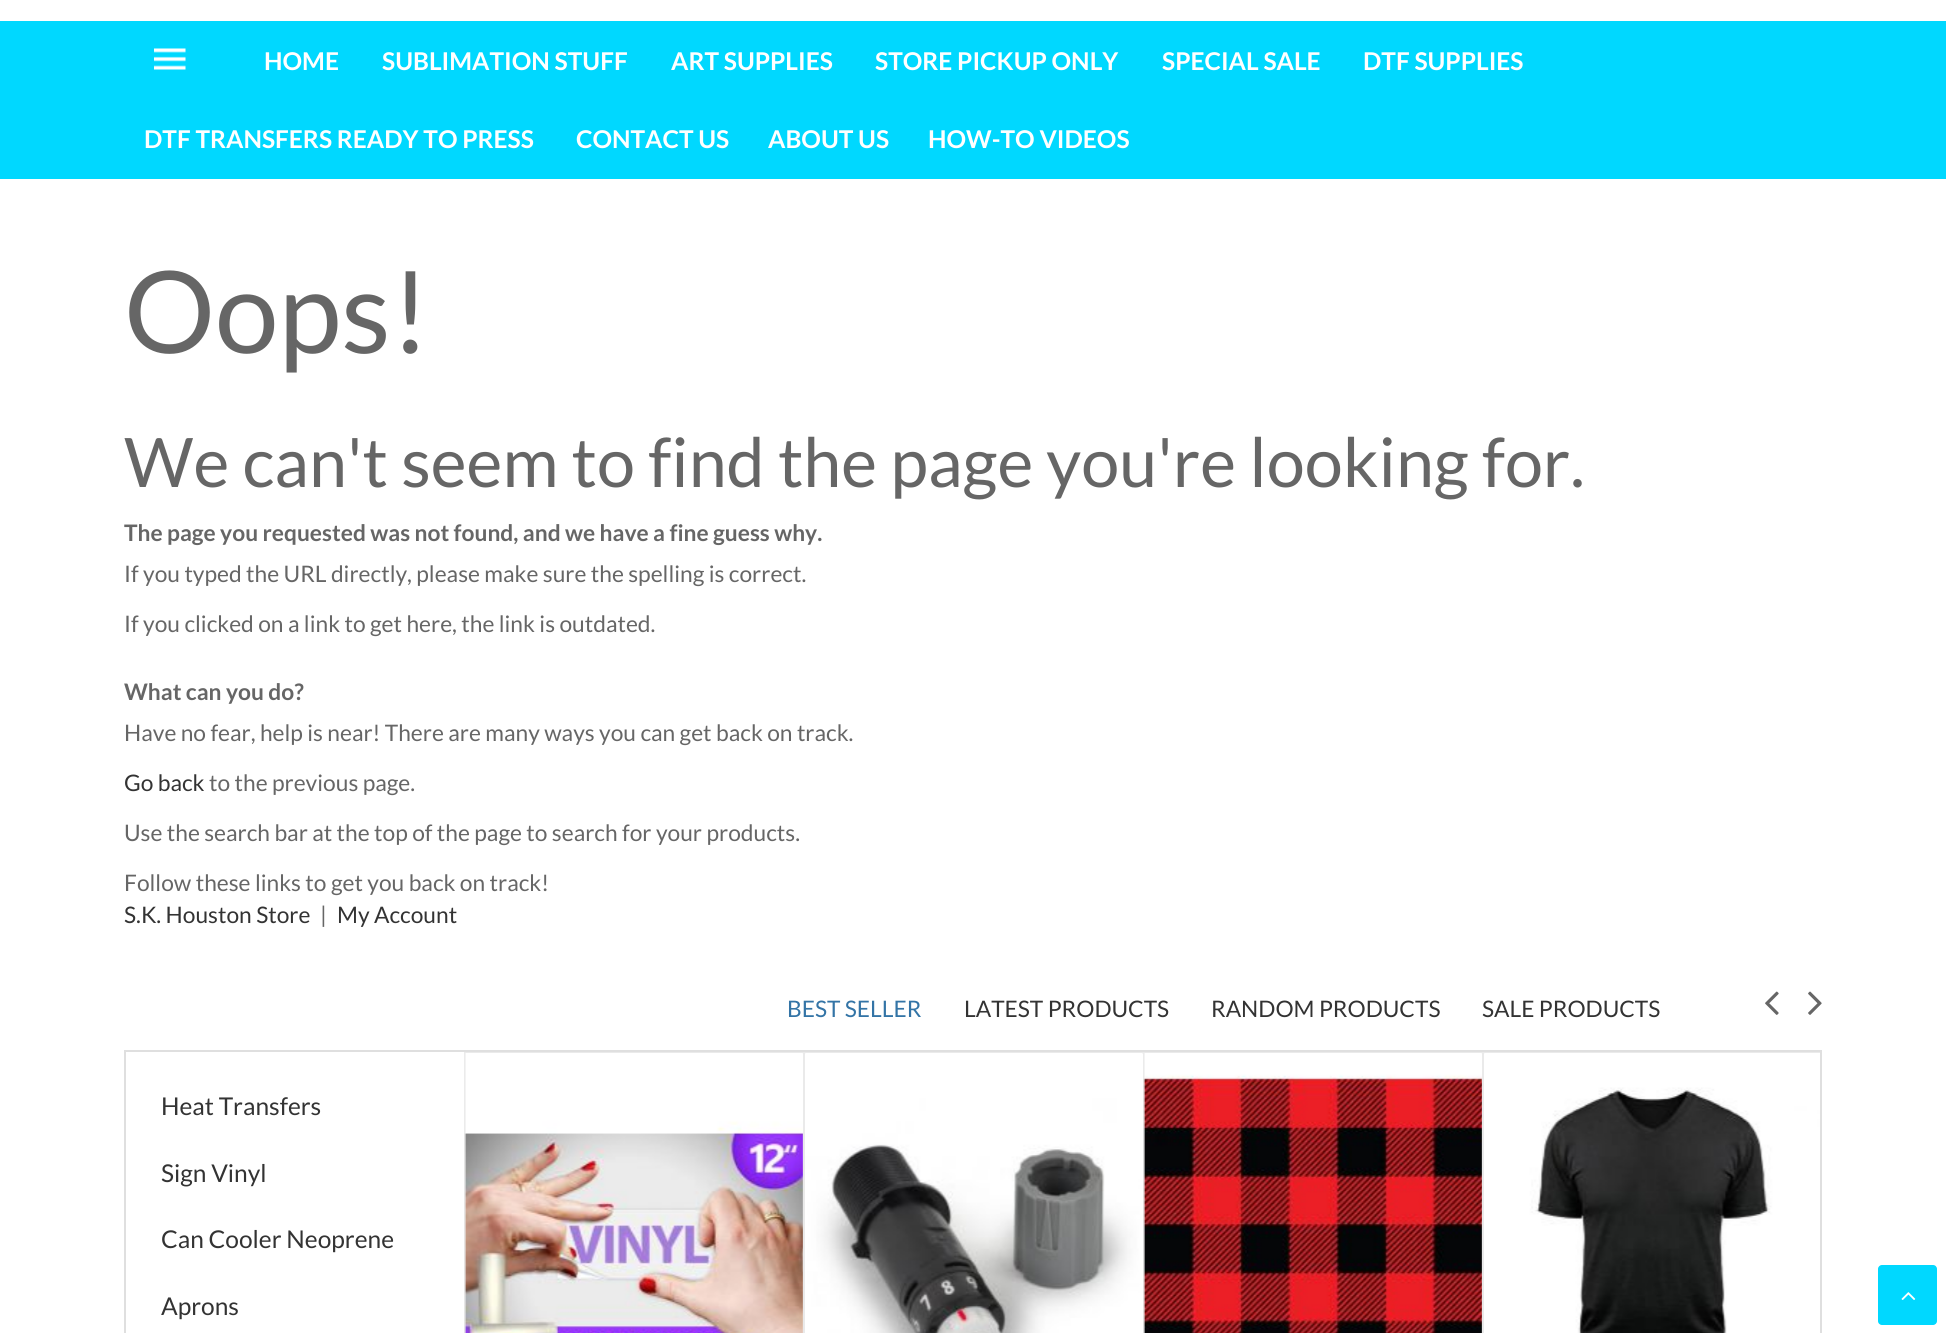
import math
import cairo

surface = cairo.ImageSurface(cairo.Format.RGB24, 1946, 1333)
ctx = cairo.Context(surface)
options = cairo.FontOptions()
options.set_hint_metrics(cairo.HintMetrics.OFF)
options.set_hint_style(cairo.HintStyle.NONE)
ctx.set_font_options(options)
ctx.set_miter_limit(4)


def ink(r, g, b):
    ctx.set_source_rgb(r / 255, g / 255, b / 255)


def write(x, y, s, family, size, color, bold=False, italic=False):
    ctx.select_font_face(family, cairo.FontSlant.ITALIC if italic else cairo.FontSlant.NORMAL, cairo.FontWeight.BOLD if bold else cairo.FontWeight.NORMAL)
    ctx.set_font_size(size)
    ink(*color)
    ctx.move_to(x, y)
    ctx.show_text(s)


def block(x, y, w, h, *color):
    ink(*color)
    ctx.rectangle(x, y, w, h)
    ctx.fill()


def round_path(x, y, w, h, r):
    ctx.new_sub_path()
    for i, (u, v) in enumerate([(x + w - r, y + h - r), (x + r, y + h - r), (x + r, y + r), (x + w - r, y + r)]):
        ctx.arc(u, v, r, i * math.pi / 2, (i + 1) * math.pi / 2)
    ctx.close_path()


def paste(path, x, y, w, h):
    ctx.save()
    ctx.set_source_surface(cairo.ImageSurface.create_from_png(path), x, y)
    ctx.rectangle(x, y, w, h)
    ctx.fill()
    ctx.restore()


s1 = dict(family="Lato", size=24.5, color=(255, 255, 255), bold=True)
s2 = dict(family="Lato", size=114, color=(102, 102, 102))
s3 = dict(family="Lato", size=68.25, color=(102, 102, 102))
s4 = dict(family="Lato", size=22.75, color=(102, 102, 102), bold=True)
s5 = dict(family="Lato", size=22.75, color=(102, 102, 102))
s6 = dict(family="Lato", size=22.75, color=(51, 51, 51))
s7 = dict(family="Lato", size=22.75, color=(51, 116, 166))
s8 = dict(family="Lato", size=24.5, color=(51, 51, 51))

ink(255, 255, 255)
ctx.paint()
block(0, 21, 1946, 158, 0, 216, 255)
paste("pic1.png", 154, 48, 32, 22)
write(264, 70, "HOME", **s1)
write(382, 70, "SUBLIMATION STUFF", **s1)
write(671, 70, "ART SUPPLIES", **s1)
write(875, 70, "STORE PICKUP ONLY", **s1)
write(1162, 70, "SPECIAL SALE", **s1)
write(1363, 70, "DTF SUPPLIES", **s1)
write(144, 148, "DTF TRANSFERS READY TO PRESS", **s1)
write(576, 148, "CONTACT US", **s1)
write(768, 148, "ABOUT US", **s1)
write(928, 148, "HOW-TO VIDEOS", **s1)
write(124, 353, "Oops!", **s2)
write(124, 487, "We can't seem to find the page you're looking for.", **s3)
write(124, 541, "The page you requested was not found, and we have a fine guess why.", **s4)
write(124, 582, "If you typed the URL directly, please make sure the spelling is correct.", **s5)
write(124, 632, "If you clicked on a link to get here, the link is outdated.", **s5)
write(124, 700, "What can you do?", **s4)
write(124, 741, "Have no fear, help is near! There are many ways you can get back on track.", **s5)
write(124, 791, "Go back", **s6)
write(209, 791, "to the previous page.", **s5)
write(124, 841, "Use the search bar at the top of the page to search for your products.", **s5)
write(124, 891, "Follow these links to get you back on track!", **s5)
write(124, 923, "S.K. Houston Store", **s6)
write(320, 923, "|", **s5)
write(337, 923, "My Account", **s6)
write(787, 1017, "BEST SELLER", **s7)
write(964, 1017, "LATEST PRODUCTS", **s6)
write(1211, 1017, "RANDOM PRODUCTS", **s6)
write(1482, 1017, "SALE PRODUCTS", **s6)
ctx.rectangle(125, 1051, 1696, 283)
ink(223, 223, 223)
ctx.stroke()
write(161, 1115, "Heat Transfers", **s8)
write(161, 1182, "Sign Vinyl", **s8)
write(161, 1248, "Can Cooler Neoprene", **s8)
write(161, 1315, "Aprons", **s8)
paste("pic2.png", 1765, 991, 14, 24)
paste("pic3.png", 1808, 991, 14, 24)
block(464, 1052, 1356, 2, 234, 234, 234)
block(464, 1052, 2, 281, 234, 234, 234)
paste("pic4.png", 464, 1053, 339, 280)
block(803, 1052, 2, 281, 234, 234, 234)
paste("pic5.png", 805, 1053, 338, 280)
block(1143, 1052, 2, 281, 234, 234, 234)
paste("pic6.png", 1143, 1053, 339, 280)
block(1482, 1052, 2, 281, 234, 234, 234)
paste("pic7.png", 1484, 1053, 336, 280)
ink(0, 216, 255)
round_path(1878, 1265, 59, 60, 4)
ctx.fill()
paste("pic8.png", 1901, 1292, 15, 8)
surface.write_to_png("screenshot.png")
